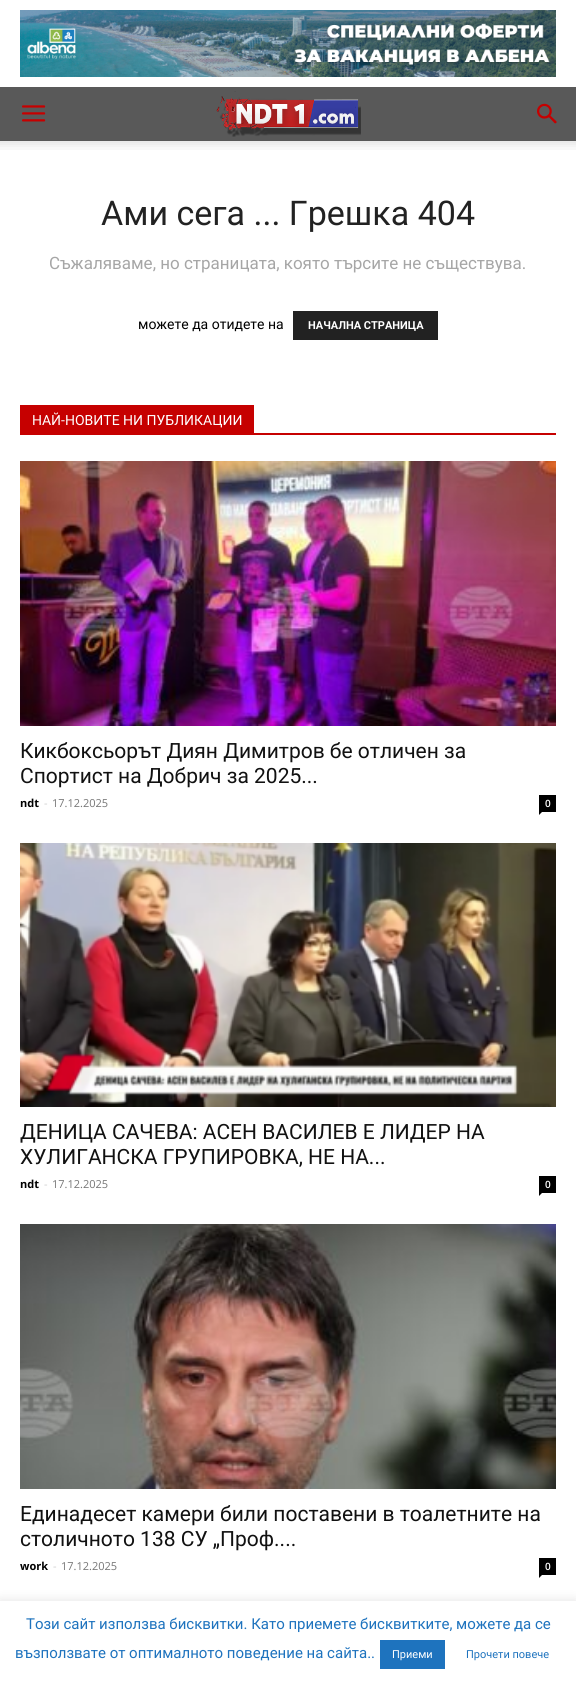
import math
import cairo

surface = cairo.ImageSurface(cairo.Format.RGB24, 576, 1681)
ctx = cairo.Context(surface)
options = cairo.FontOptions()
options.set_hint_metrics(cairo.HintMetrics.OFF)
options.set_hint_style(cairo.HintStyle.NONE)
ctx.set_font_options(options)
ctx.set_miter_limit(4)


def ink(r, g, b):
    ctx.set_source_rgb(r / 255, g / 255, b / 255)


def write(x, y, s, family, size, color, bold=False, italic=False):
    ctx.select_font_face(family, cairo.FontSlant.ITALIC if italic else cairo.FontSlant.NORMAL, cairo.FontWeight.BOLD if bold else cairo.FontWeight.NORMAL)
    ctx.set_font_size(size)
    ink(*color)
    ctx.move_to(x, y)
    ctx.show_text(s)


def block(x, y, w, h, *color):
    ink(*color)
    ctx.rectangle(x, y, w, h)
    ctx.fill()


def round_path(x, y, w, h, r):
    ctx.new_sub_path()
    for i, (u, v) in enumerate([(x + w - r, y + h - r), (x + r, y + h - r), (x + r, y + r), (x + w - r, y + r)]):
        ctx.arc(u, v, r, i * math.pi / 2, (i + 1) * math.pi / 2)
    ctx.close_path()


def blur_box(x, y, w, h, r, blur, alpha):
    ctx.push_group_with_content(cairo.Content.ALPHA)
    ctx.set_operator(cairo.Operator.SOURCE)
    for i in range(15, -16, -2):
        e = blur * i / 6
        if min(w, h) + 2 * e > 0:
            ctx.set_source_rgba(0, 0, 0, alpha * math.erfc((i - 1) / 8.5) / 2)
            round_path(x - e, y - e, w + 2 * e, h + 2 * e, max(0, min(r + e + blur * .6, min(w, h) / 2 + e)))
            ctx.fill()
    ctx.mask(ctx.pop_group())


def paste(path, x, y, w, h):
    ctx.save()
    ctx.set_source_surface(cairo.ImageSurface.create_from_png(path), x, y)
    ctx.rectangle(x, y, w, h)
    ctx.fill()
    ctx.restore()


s1 = dict(family="Roboto", size=34, color=(34, 34, 34))
s2 = dict(family="Roboto", size=17, color=(166, 166, 166))
s3 = dict(family="Roboto", size=14, color=(0, 0, 0))
s4 = dict(family="Roboto", size=11, color=(255, 255, 255), bold=True)
s5 = dict(family="Roboto", size=14, color=(255, 255, 255))
s6 = dict(family="Roboto", size=21, color=(17, 17, 17))
s7 = dict(family="Open Sans", size=11, color=(0, 0, 0), bold=True)
s8 = dict(family="Open Sans", size=11, color=(204, 204, 204))
s9 = dict(family="Open Sans", size=11, color=(118, 118, 118))
s10 = dict(family="Open Sans SemiBold", size=10, color=(255, 255, 255))
s11 = dict(family="Roboto", size=15, color=(30, 115, 190))
s12 = dict(family="Roboto", size=11, color=(255, 255, 255))
s13 = dict(family="Roboto", size=11, color=(30, 115, 190))

ink(255, 255, 255)
ctx.paint()
paste("pic1.png", 20, 10, 536, 67)
block(0, 87, 576, 54, 89, 89, 89)
paste("pic2.png", 22, 105, 24, 17)
paste("pic3.png", 216, 91, 145, 46)
paste("pic4.png", 537, 103, 20, 21)
paste("pic5.png", 0, 141, 576, 9)
write(101, 225, "Ами сега ... Грешка 404", **s1)
write(49, 269, "Съжаляваме, но страницата, която търсите не съществува.", **s2)
write(138, 329, "можете да отидете на", **s3)
block(293, 311, 145, 29, 34, 34, 34)
write(308, 329, "НАЧАЛНА СТРАНИЦА", **s4)
block(20, 433, 536, 2, 198, 0, 0)
block(20, 405, 234, 28, 198, 0, 0)
write(32, 425, "НАЙ-НОВИТЕ НИ ПУБЛИКАЦИИ", **s5)
paste("pic6.png", 20, 461, 536, 265)
write(20, 758, "Кикбоксьорът Диян Димитров бе отличен за", **s6)
write(20, 783, "Спортист на Добрич за 2025...", **s6)
write(20, 807, "ndt", **s7)
write(44, 807, "-", **s8)
write(52, 807, "17.12.2025", **s9)
block(539, 795, 17, 17, 0, 0, 0)
write(545, 807, "0", **s10)
ink(0, 0, 0)
ctx.new_path()
ctx.move_to(539, 812)
ctx.line_to(542, 812)
ctx.line_to(539, 815)
ctx.close_path()
ctx.fill()
paste("pic7.png", 20, 843, 536, 264)
write(20, 1139, "ДЕНИЦА САЧЕВА: АСЕН ВАСИЛЕВ Е ЛИДЕР НА", **s6)
write(20, 1164, "ХУЛИГАНСКА ГРУПИРОВКА, НЕ НА...", **s6)
write(20, 1188, "ndt", **s7)
write(44, 1188, "-", **s8)
write(52, 1188, "17.12.2025", **s9)
block(539, 1176, 17, 17, 0, 0, 0)
write(545, 1188, "0", **s10)
ink(0, 0, 0)
ctx.new_path()
ctx.move_to(539, 1193)
ctx.line_to(542, 1193)
ctx.line_to(539, 1196)
ctx.close_path()
ctx.fill()
paste("pic8.png", 20, 1224, 536, 265)
write(20, 1521, "Единадесет камери били поставени в тоалетните на", **s6)
write(20, 1546, "столичното 138 СУ „Проф....", **s6)
write(20, 1570, "work", **s7)
write(53, 1570, "-", **s8)
write(61, 1570, "17.12.2025", **s9)
block(539, 1558, 17, 17, 0, 0, 0)
write(545, 1570, "0", **s10)
ink(0, 0, 0)
ctx.new_path()
ctx.move_to(539, 1575)
ctx.line_to(542, 1575)
ctx.line_to(539, 1578)
ctx.close_path()
ctx.fill()
ink(172, 171, 171)
blur_box(0, 1600, 576, 80, 0, 5, 0.3)
block(0, 1601, 576, 80, 255, 255, 255)
write(26, 1629, "Този сайт използва бисквитки. Като приемете бисквитките, можете да се", **s11)
write(15, 1658, "възползвате от оптималното поведение на сайта..", **s11)
block(380, 1640, 65, 29, 30, 115, 190)
write(392, 1658, "Приеми", **s12)
write(466, 1658, "Прочети повече", **s13)
surface.write_to_png("screenshot.png")
